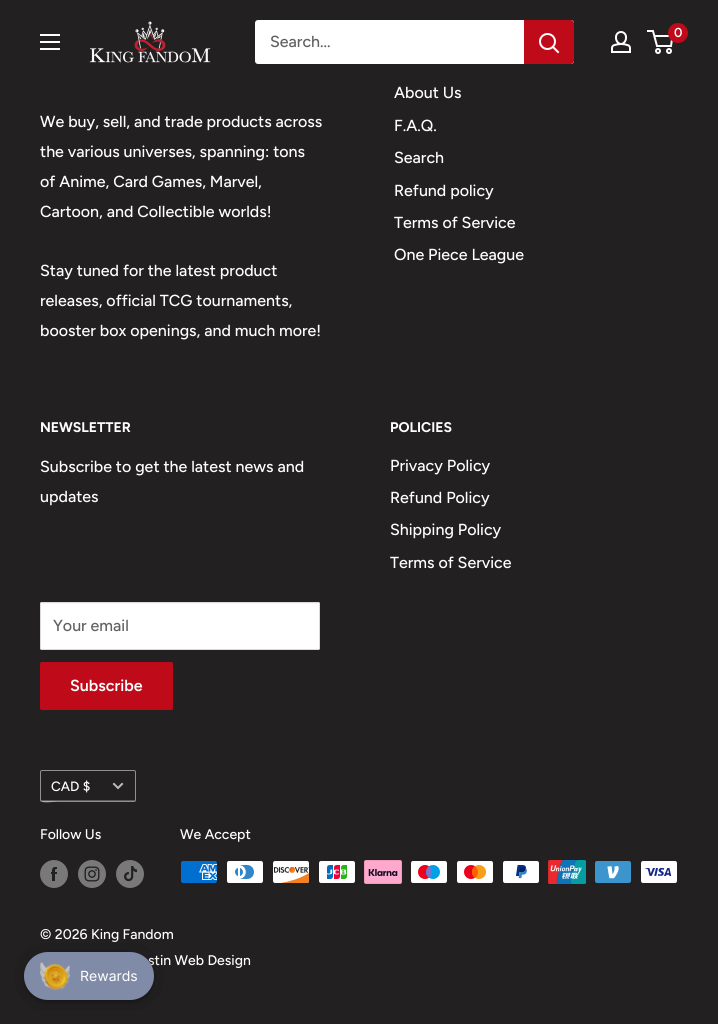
import math
import cairo

surface = cairo.ImageSurface(cairo.Format.RGB24, 718, 1024)
ctx = cairo.Context(surface)
options = cairo.FontOptions()
options.set_hint_metrics(cairo.HintMetrics.OFF)
options.set_hint_style(cairo.HintStyle.NONE)
ctx.set_font_options(options)
ctx.set_miter_limit(4)


def ink(r, g, b):
    ctx.set_source_rgb(r / 255, g / 255, b / 255)


def write(x, y, s, family, size, color, bold=False, italic=False):
    ctx.select_font_face(family, cairo.FontSlant.ITALIC if italic else cairo.FontSlant.NORMAL, cairo.FontWeight.BOLD if bold else cairo.FontWeight.NORMAL)
    ctx.set_font_size(size)
    ink(*color)
    ctx.move_to(x, y)
    ctx.show_text(s)


def round_path(x, y, w, h, r):
    ctx.new_sub_path()
    for i, (u, v) in enumerate([(x + w - r, y + h - r), (x + r, y + h - r), (x + r, y + r), (x + w - r, y + r)]):
        ctx.arc(u, v, r, i * math.pi / 2, (i + 1) * math.pi / 2)
    ctx.close_path()


def blur_box(x, y, w, h, r, blur, alpha):
    ctx.push_group_with_content(cairo.Content.ALPHA)
    ctx.set_operator(cairo.Operator.SOURCE)
    for i in range(15, -16, -2):
        e = blur * i / 6
        if min(w, h) + 2 * e > 0:
            ctx.set_source_rgba(0, 0, 0, alpha * math.erfc((i - 1) / 8.5) / 2)
            round_path(x - e, y - e, w + 2 * e, h + 2 * e, max(0, min(r + e + blur * .6, min(w, h) / 2 + e)))
            ctx.fill()
    ctx.mask(ctx.pop_group())


def paste(path, x, y, w, h):
    ctx.save()
    ctx.set_source_surface(cairo.ImageSurface.create_from_png(path), x, y)
    ctx.rectangle(x, y, w, h)
    ctx.fill()
    ctx.restore()


s1 = dict(family="Figtree SemiBold", size=13, color=(255, 255, 255))
s2 = dict(family="Figtree Medium", size=16, color=(97, 97, 97))
s3 = dict(family="Figtree Medium", size=16, color=(255, 255, 255))
s4 = dict(family="Figtree", size=14, color=(255, 255, 255), bold=True)
s5 = dict(family="Figtree SemiBold", size=16, color=(255, 255, 255))
s6 = dict(family="Figtree Medium", size=13.5, color=(255, 255, 255))
s7 = dict(family="Figtree Medium", size=14, color=(255, 255, 255))
s8 = dict(family="Inter", size=14, color=(255, 255, 255))

ink(34, 32, 33)
ctx.paint()
paste("pic1.png", 89, 21, 122, 42)
paste("pic2.png", 611, 31, 20, 22)
ctx.arc(658, 51, 2, 0, 2 * math.pi)
ink(255, 255, 255)
ctx.stroke()
ctx.arc(669, 51, 2, 0, 2 * math.pi)
ctx.stroke()
ctx.new_path()
ctx.move_to(654.5, 36)
ctx.line_to(672.5, 36)
ctx.line_to(671, 46)
ctx.line_to(657, 46)
ctx.line_to(653, 31)
ctx.line_to(647, 31)
ctx.stroke()
ink(191, 11, 25)
ctx.arc(678, 33, 10, 0, 2 * math.pi)
ctx.fill()
write(674, 37, "0", **s1)
paste("pic3.png", 40, 34, 20, 16)
round_path(255, 20, 319, 44, 3)
ctx.fill()
write(270, 47, "Search...", **s2)
ink(191, 11, 25)
ctx.new_path()
ctx.move_to(524, 20)
ctx.line_to(571, 20)
ctx.curve_to(572.5, 20, 574, 21.5, 574, 23)
ctx.line_to(574, 61)
ctx.curve_to(574, 62.5, 572.5, 64, 571, 64)
ctx.line_to(524, 64)
ctx.close_path()
ctx.fill()
ctx.new_path()
ctx.move_to(558, 52)
ctx.line_to(553, 47)
ink(255, 255, 255)
ctx.set_line_cap(cairo.LineCap.SQUARE)
ctx.stroke()
ctx.arc(547.5, 41.5, 7.5, 0, 2 * math.pi)
ctx.set_line_cap(cairo.LineCap.BUTT)
ctx.stroke()
write(40, 127, "We buy, sell, and trade products across", **s3)
write(40, 157, "the various universes, spanning: tons", **s3)
write(40, 187, "of Anime, Card Games, Marvel,", **s3)
write(40, 217, "Cartoon, and Collectible worlds!", **s3)
write(40, 276, "Stay tuned for the latest product", **s3)
write(40, 306, "releases, official TCG tournaments,", **s3)
write(40, 336, "booster box openings, and much more!", **s3)
write(394, 98, "About Us", **s3)
write(394, 131, "F.A.Q.", **s3)
write(394, 163, "Search", **s3)
write(394, 196, "Refund policy", **s3)
write(394, 228, "Terms of Service", **s3)
write(394, 260, "One Piece League", **s3)
write(40, 432, "NEWSLETTER", **s4)
write(40, 472, "Subscribe to get the latest news and", **s3)
write(40, 502, "updates", **s3)
round_path(40, 602, 280, 48, 2)
ctx.fill()
ink(249, 249, 249)
ctx.new_path()
ctx.move_to(42, 604)
ctx.line_to(318, 604)
ctx.curve_to(319, 604, 319, 604, 319, 605)
ctx.curve_to(319, 604, 319, 603, 318, 603)
ctx.line_to(42, 603)
ctx.line_to(41, 603)
ctx.line_to(41, 605)
ctx.curve_to(41, 604, 41, 604, 42, 604)
ctx.close_path()
ctx.fill()
round_path(40.5, 602.5, 279, 47, 1.5)
ink(219, 219, 219)
ctx.set_line_width(1)
ctx.stroke()
write(53, 631, "Your email", **s2)
ink(191, 11, 25)
round_path(40, 662, 133, 48, 2)
ctx.fill()
write(70, 691, "Subscribe", **s5)
write(390, 432, "POLICIES", **s4)
write(390, 471, "Privacy Policy", **s3)
write(390, 503, "Refund Policy", **s3)
write(390, 535, "Shipping Policy", **s3)
write(390, 568, "Terms of Service", **s3)
ink(93, 92, 93)
ctx.new_path()
ctx.move_to(41, 799)
ctx.curve_to(41, 806, 56, 801, 57, 801)
ctx.line_to(134, 801)
ctx.curve_to(135, 801, 135, 800, 135, 799)
ctx.curve_to(135, 800, 135, 800, 134, 800)
ctx.line_to(42, 800)
ctx.curve_to(41, 800, 41, 800, 41, 799)
ctx.close_path()
ctx.fill()
round_path(40.5, 770.5, 95, 31, 1.5)
ctx.set_source_rgba(1, 1, 1, 0.5)
ctx.stroke()
write(51, 791, "CAD $", **s6)
ctx.new_path()
ctx.move_to(122, 784)
ctx.line_to(118, 788)
ctx.line_to(114, 784)
ink(189, 188, 188)
ctx.set_line_width(2)
ctx.set_line_cap(cairo.LineCap.SQUARE)
ctx.stroke()
write(40, 839, "Follow Us", **s7)
paste("pic4.png", 40, 860, 28, 28)
paste("pic5.png", 78, 860, 28, 28)
paste("pic6.png", 116, 860, 28, 28)
write(180, 839, "We Accept", **s7)
paste("pic7.png", 181, 861, 36, 22)
paste("pic8.png", 227, 861, 36, 22)
paste("pic9.png", 273, 861, 36, 22)
paste("pic10.png", 319, 861, 36, 22)
paste("pic11.png", 364, 860, 38, 24)
paste("pic12.png", 411, 861, 36, 22)
paste("pic13.png", 457, 861, 36, 22)
paste("pic14.png", 503, 861, 36, 22)
paste("pic15.png", 548, 860, 38, 24)
paste("pic16.png", 595, 861, 36, 22)
paste("pic17.png", 641, 861, 36, 22)
write(40, 939, "© 2026 King Fandom", **s7)
write(148, 965, "stin Web Design", **s7)
ink(0, 0, 0)
blur_box(24, 953, 130, 48, 24, 9, 0.12)
blur_box(25, 956, 128, 46, 23, 2.5, 0.2)
blur_box(24, 953, 130, 48, 24, 9, 0.12)
ink(128, 139, 167)
round_path(24, 952, 130, 48, 24)
ctx.fill()
paste("pic18.png", 40, 962, 30, 29)
write(80, 981, "Rewards", **s8)
surface.write_to_png("screenshot.png")
